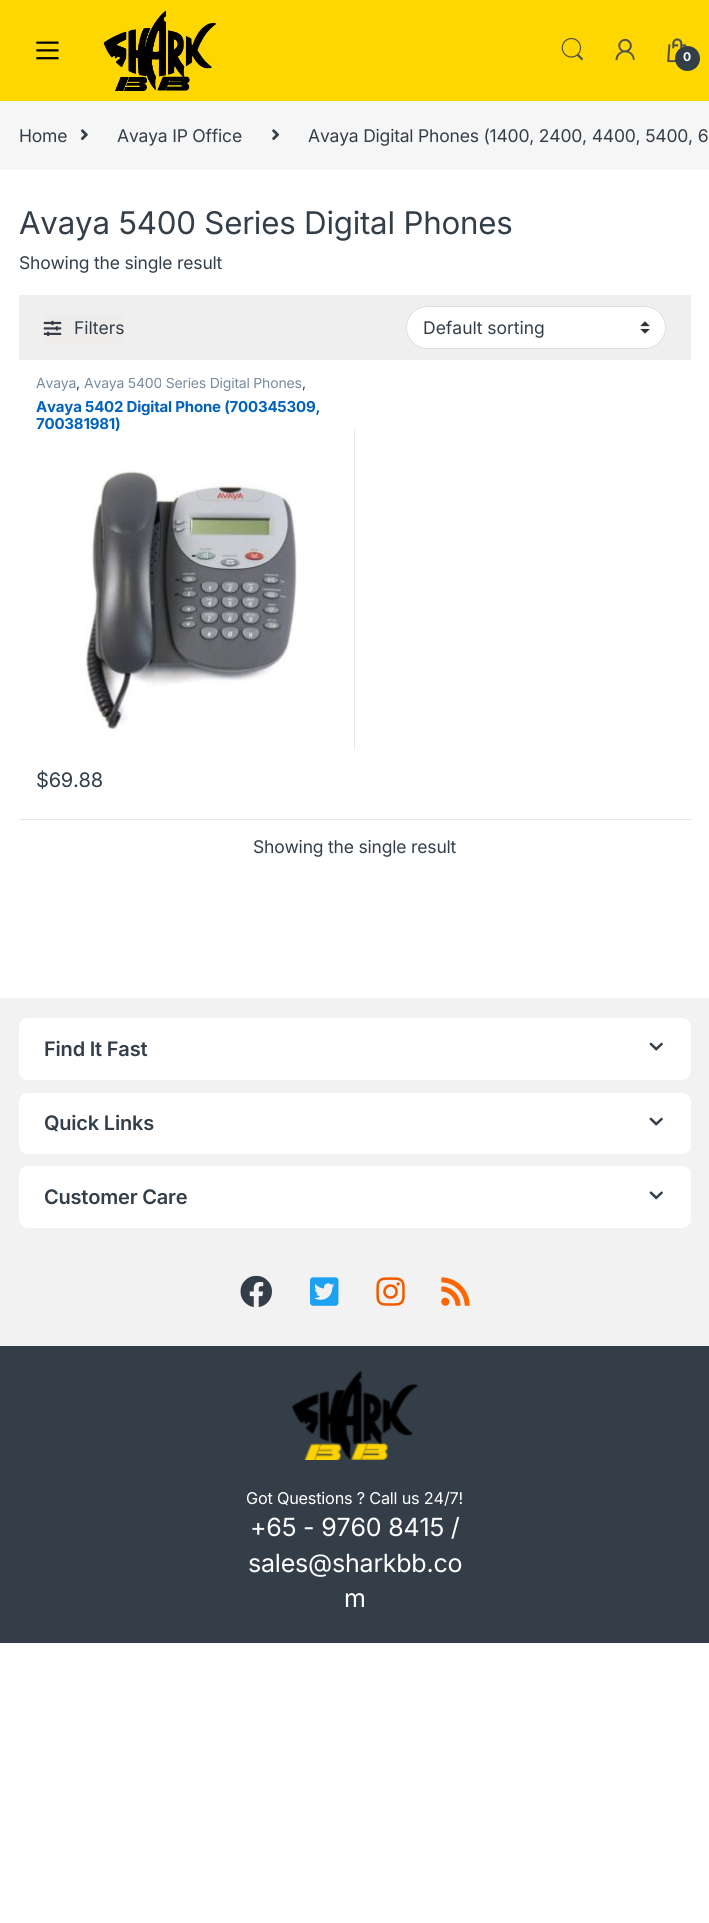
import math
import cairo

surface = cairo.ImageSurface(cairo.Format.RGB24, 709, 1923)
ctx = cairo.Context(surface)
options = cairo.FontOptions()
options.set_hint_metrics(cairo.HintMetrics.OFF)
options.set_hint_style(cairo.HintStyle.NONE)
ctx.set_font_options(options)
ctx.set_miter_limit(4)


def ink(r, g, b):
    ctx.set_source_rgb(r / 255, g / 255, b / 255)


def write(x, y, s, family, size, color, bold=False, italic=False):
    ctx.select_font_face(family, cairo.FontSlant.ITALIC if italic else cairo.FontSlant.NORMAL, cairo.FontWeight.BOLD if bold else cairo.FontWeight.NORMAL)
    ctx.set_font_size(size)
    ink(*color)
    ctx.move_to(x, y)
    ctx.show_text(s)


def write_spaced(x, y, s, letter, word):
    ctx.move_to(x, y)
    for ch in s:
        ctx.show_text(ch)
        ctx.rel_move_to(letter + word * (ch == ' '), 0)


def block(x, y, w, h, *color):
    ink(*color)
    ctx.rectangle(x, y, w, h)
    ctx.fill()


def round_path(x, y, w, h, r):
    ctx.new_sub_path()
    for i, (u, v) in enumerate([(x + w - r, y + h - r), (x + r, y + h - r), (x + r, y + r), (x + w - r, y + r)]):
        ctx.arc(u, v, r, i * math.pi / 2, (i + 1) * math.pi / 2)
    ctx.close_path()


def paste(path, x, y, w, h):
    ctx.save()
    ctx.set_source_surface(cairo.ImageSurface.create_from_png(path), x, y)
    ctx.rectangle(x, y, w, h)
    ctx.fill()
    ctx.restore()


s1 = dict(family="Inter", size=17.5, color=(51, 62, 72))

ink(255, 255, 255)
ctx.paint()
block(0, 0, 709, 101, 254, 215, 0)
paste("pic1.png", 36, 41, 23, 19)
paste("pic2.png", 103, 11, 113, 81)
paste("pic3.png", 561, 37, 23, 24)
paste("pic4.png", 615, 39, 20, 22)
paste("pic5.png", 667, 38, 20, 25)
ink(51, 62, 72)
ctx.arc(687.5, 58.5, 12.5, 0, 2 * math.pi)
ctx.fill()
ctx.select_font_face("Inter", cairo.FontSlant.NORMAL, cairo.FontWeight.BOLD)
ctx.set_font_size(12)
ink(255, 255, 255)
write_spaced(683, 61, "0", -0.2, 0)
block(0, 101, 709, 69, 247, 246, 246)
ctx.select_font_face("Inter")
ctx.set_font_size(17.5)
ink(51, 62, 72)
write_spaced(19, 142, "Home", -0.2, 0)
paste("pic6.png", 80, 129, 8, 12)
write_spaced(117, 142, "Avaya IP Office", -0.2, 0)
paste("pic7.png", 272, 129, 8, 12)
write_spaced(308, 142, "Avaya Digital Phones (1400, 2400, 4400, 5400, 6", -0.2, 0)
ctx.set_font_size(31.25)
write_spaced(19, 234, "Avaya 5400 Series Digital Phones", -0.2, 0)
ctx.set_font_size(17.5)
write_spaced(19, 269, "Showing the single result", -0.2, 0)
block(19, 295, 672, 65, 239, 239, 239)
block(44, 314, 80, 30, 239, 236, 236)
paste("pic8.png", 43, 320, 19, 17)
write(74, 334, "Filters", **s1)
ink(255, 255, 255)
round_path(406, 306, 260, 43, 21.5)
ctx.fill()
paste("pic9.png", 640, 321, 10, 13)
round_path(406.5, 306.5, 259, 42, 21)
ink(221, 221, 221)
ctx.set_line_width(1)
ctx.stroke()
write(423, 334, "Default sorting", **s1)
ctx.set_font_size(14)
ink(118, 139, 158)
write_spaced(36, 388, "Avaya", -0.2, 0)
ink(51, 62, 72)
write_spaced(76, 388, ",", -0.2, 0)
ctx.save()
ctx.rectangle(36, 378, 302, 15)
ctx.clip()
ink(118, 139, 158)
write_spaced(84, 388, "Avaya 5400 Series Digital Phones", -0.2, 0)
ctx.restore()
write_spaced(302, 388, ",", -0.2, 0)
ctx.select_font_face("Inter", cairo.FontSlant.NORMAL, cairo.FontWeight.BOLD)
ctx.set_font_size(15)
ink(0, 98, 189)
write_spaced(36, 412, "Avaya 5402 Digital Phone (700345309,", -0.2, 0)
write_spaced(36, 429, "700381981)", -0.2, 0)
paste("pic10.png", 84, 469, 213, 262)
ctx.select_font_face("Inter")
ctx.set_font_size(20)
ink(51, 62, 72)
write_spaced(36, 787, "$69.88", -0.2, 0)
block(354, 429, 1, 321, 234, 234, 234)
block(19, 819, 672, 1, 231, 231, 231)
ctx.set_font_size(17.5)
ink(51, 62, 72)
write_spaced(253, 853, "Showing the single result", -0.2, 0)
block(0, 998, 709, 348, 242, 242, 242)
ink(255, 255, 255)
round_path(19, 1018, 672, 62, 9)
ctx.fill()
ctx.select_font_face("Inter SemiBold")
ctx.set_font_size(20)
ink(51, 62, 72)
write_spaced(44, 1056, "Find It Fast", -0.2, 0)
paste("pic11.png", 649, 1042, 14, 9)
ink(255, 255, 255)
round_path(19, 1093, 672, 61, 9)
ctx.fill()
ink(51, 62, 72)
write_spaced(44, 1130, "Quick Links", -0.2, 0)
paste("pic11.png", 649, 1117, 14, 9)
ink(255, 255, 255)
round_path(19, 1166, 672, 62, 9)
ctx.fill()
ink(51, 62, 72)
write_spaced(44, 1204, "Customer Care", -0.2, 0)
paste("pic12.png", 649, 1191, 14, 9)
paste("pic13.png", 240, 1275, 32, 33)
paste("pic14.png", 310, 1277, 29, 29)
paste("pic15.png", 376, 1277, 29, 29)
paste("pic16.png", 441, 1277, 29, 29)
block(0, 1346, 709, 297, 51, 62, 72)
paste("pic17.png", 292, 1371, 126, 89)
ctx.select_font_face("Inter")
ctx.set_font_size(16.25)
ink(255, 255, 255)
write_spaced(246, 1504, "Got Questions ? Call us 24/7!", -0.2, 0)
ctx.set_font_size(25)
write_spaced(250, 1536, "+65 - 9760 8415 /", -0.2, 0)
write_spaced(248, 1572, "sales@sharkbb.co", -0.2, 0)
write_spaced(344, 1607, "m", -0.2, 0)
surface.write_to_png("screenshot.png")
